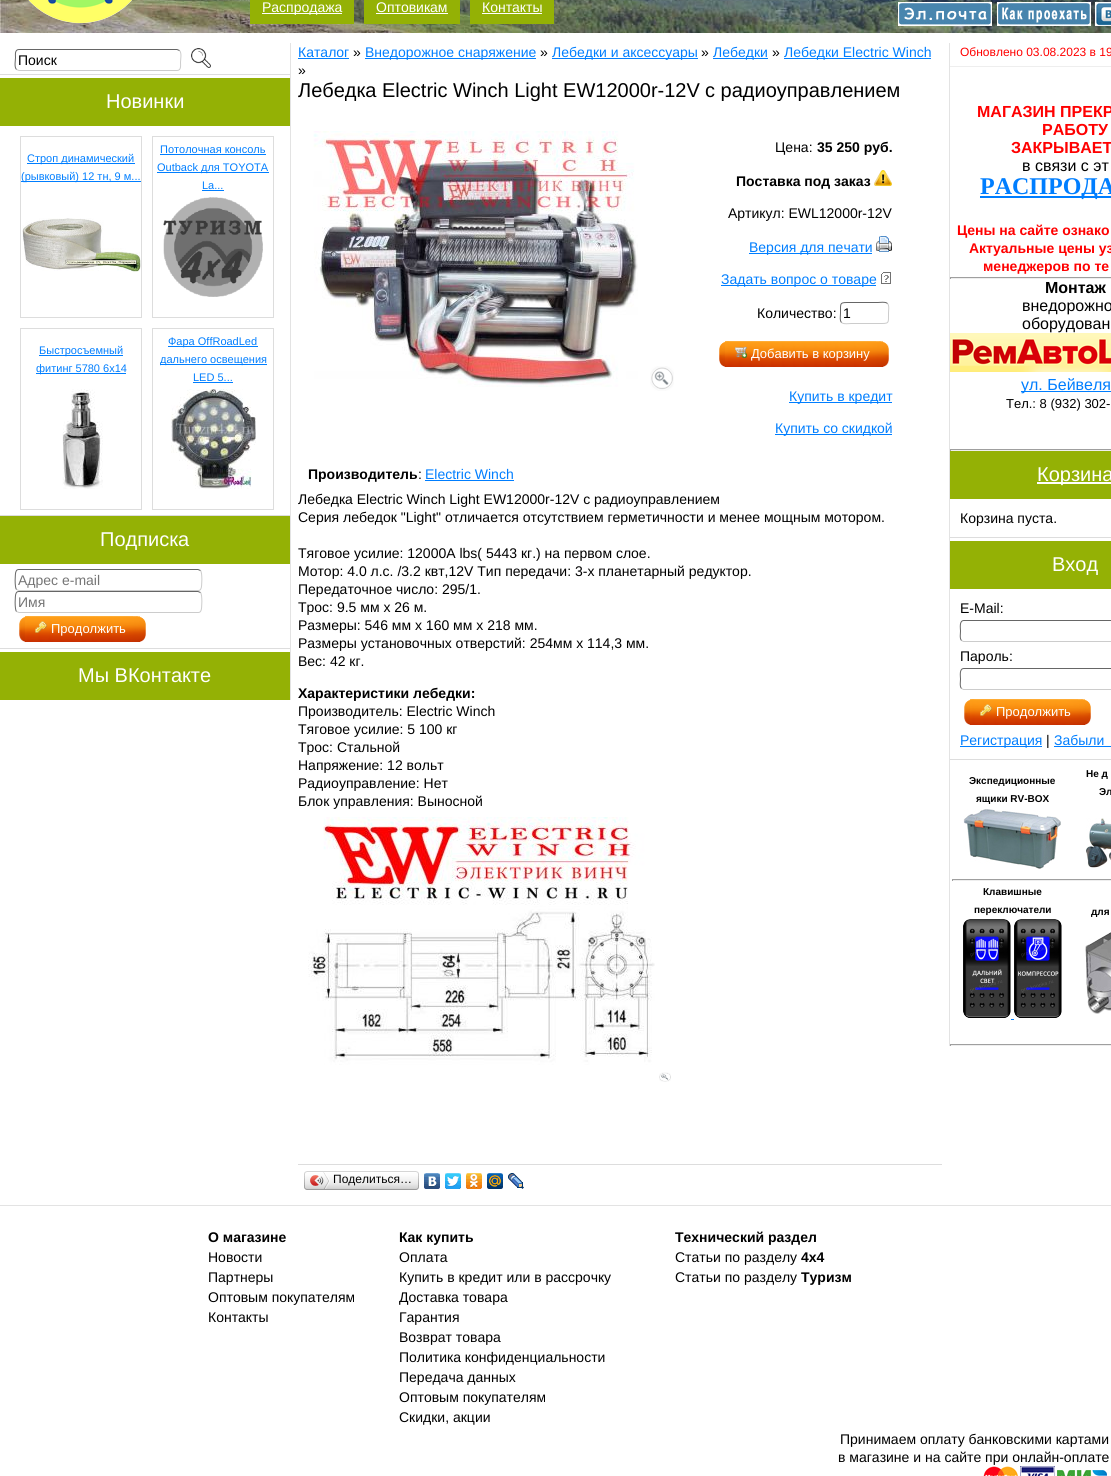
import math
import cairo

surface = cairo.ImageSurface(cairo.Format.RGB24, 1111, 1476)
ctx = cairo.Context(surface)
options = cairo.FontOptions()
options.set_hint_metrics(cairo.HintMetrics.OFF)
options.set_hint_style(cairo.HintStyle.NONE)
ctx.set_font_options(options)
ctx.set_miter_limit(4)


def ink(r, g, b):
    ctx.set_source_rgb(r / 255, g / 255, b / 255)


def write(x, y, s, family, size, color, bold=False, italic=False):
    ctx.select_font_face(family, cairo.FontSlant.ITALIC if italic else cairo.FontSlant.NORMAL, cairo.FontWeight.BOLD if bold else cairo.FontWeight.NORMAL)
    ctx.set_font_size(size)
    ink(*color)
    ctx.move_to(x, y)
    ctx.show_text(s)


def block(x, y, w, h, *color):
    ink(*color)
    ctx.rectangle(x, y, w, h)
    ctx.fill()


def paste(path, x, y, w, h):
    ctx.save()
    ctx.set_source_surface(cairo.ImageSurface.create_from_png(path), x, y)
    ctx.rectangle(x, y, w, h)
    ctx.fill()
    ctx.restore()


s1 = dict(family="Liberation Sans", size=14, color=(255, 255, 255))
s2 = dict(family="Liberation Sans", size=14, color=(0, 0, 0))
s3 = dict(family="Liberation Sans", size=20, color=(255, 255, 255))
s4 = dict(family="Liberation Sans", size=11, color=(0, 126, 255))
s5 = dict(family="Liberation Sans", size=14, color=(117, 117, 117))
s6 = dict(family="Liberation Sans", size=13, color=(255, 255, 255))
s7 = dict(family="Liberation Sans", size=14, color=(0, 126, 255))
s8 = dict(family="Liberation Sans", size=20, color=(0, 0, 0))
s9 = dict(family="Liberation Sans", size=14, color=(0, 0, 0), bold=True)
s10 = dict(family="Liberation Sans", size=12, color=(0, 0, 0))
s11 = dict(family="Liberation Sans", size=12, color=(255, 0, 0))
s12 = dict(family="Liberation Sans", size=16, color=(255, 0, 0), bold=True)
s13 = dict(family="Liberation Sans", size=16, color=(0, 0, 0))
s14 = dict(family="Liberation Serif", size=24, color=(0, 126, 255), bold=True)
s15 = dict(family="Liberation Sans", size=14, color=(255, 0, 0), bold=True)
s16 = dict(family="Liberation Sans", size=16, color=(0, 0, 0), bold=True)
s17 = dict(family="Liberation Sans", size=16, color=(0, 126, 255))
s18 = dict(family="Liberation Sans", size=13, color=(0, 0, 0))
s19 = dict(family="Liberation Sans", size=10, color=(0, 0, 0), bold=True)

ink(255, 255, 255)
ctx.paint()
paste("pic1.png", 0, 0, 1111, 33)
paste("pic2.png", 28, 0, 104, 23)
paste("pic3.png", 28, 0, 104, 23)
block(250, 0, 104, 24, 148, 177, 5)
block(262, 13, 80, 1, 255, 255, 255)
write(262, 12, "Распродажа", **s1)
block(364, 0, 96, 24, 148, 177, 5)
write(376, 12, "Оптовикам", **s1)
block(376, 13, 72, 1, 255, 255, 255)
block(470, 0, 84, 24, 148, 177, 5)
write(482, 12, "Контакты", **s1)
block(482, 13, 60, 1, 255, 255, 255)
paste("pic4.png", 898, 2, 94, 24)
paste("pic5.png", 997, 2, 94, 24)
paste("pic6.png", 1095, 2, 16, 24)
block(290, 43, 1, 657, 227, 227, 227)
block(0, 74, 290, 1, 221, 221, 221)
ctx.new_path()
ctx.move_to(179.5, 50.5)
ctx.curve_to(182, 53, 180.5, 59.5, 180.5, 62.5)
ctx.curve_to(180.5, 65, 181.5, 70.5, 177, 70.5)
ctx.line_to(19, 70.5)
ctx.line_to(16.5, 69.5)
ink(204, 204, 204)
ctx.set_line_width(1)
ctx.stroke()
ctx.new_path()
ctx.move_to(16.5, 69.5)
ctx.curve_to(14, 67, 15.5, 60.5, 15.5, 57.5)
ctx.curve_to(15.5, 55, 14.5, 49.5, 19, 49.5)
ctx.line_to(177, 49.5)
ctx.line_to(179.5, 50.5)
ink(102, 102, 102)
ctx.stroke()
write(18, 65, "Поиск", **s2)
paste("pic7.png", 191, 48, 20, 20)
block(0, 78, 290, 48, 148, 177, 5)
write(106, 108, "Новинки", **s3)
block(0, 515, 290, 1, 221, 221, 221)
ctx.rectangle(20.5, 136.5, 121, 181)
ctx.stroke()
block(27, 163, 108, 1, 0, 126, 255)
write(27, 162, "Строп динамический", **s4)
block(21, 181, 120, 1, 0, 126, 255)
write(21, 180, "(рывковый) 12 тн, 9 м...", **s4)
paste("pic8.png", 22, 218, 119, 54)
ctx.rectangle(152.5, 136.5, 121, 181)
ink(221, 221, 221)
ctx.stroke()
write(160, 153, "Потолочная консоль", **s4)
block(160, 154, 106, 1, 0, 126, 255)
block(157, 172, 112, 1, 0, 126, 255)
write(157, 171, "Outback для TOYOTA", **s4)
write(202, 189, "La...", **s4)
block(202, 190, 22, 1, 0, 126, 255)
paste("pic9.png", 163, 197, 100, 100)
ctx.rectangle(20.5, 328.5, 121, 181)
ink(221, 221, 221)
ctx.stroke()
block(39, 355, 84, 1, 0, 126, 255)
write(39, 354, "Быстросъемный", **s4)
block(36, 373, 90, 1, 0, 126, 255)
write(36, 372, "фитинг 5780 6x14", **s4)
paste("pic10.png", 62, 389, 41, 100)
ctx.rectangle(152.5, 328.5, 121, 181)
ink(221, 221, 221)
ctx.stroke()
block(168, 346, 90, 1, 0, 126, 255)
write(168, 345, "Фара OffRoadLed", **s4)
block(160, 364, 107, 1, 0, 126, 255)
write(160, 363, "дальнего освещения", **s4)
write(193, 381, "LED 5...", **s4)
block(193, 382, 40, 1, 0, 126, 255)
paste("pic11.png", 171, 389, 85, 100)
block(0, 516, 290, 48, 148, 177, 5)
write(100, 546, "Подписка", **s3)
block(0, 648, 290, 1, 221, 221, 221)
ctx.new_path()
ctx.move_to(200.5, 570.5)
ctx.curve_to(202.5, 572.5, 202, 587, 201, 588.5)
ctx.curve_to(200.5, 590, 199.5, 590.5, 198, 590.5)
ctx.line_to(19, 590.5)
ctx.line_to(16.5, 589.5)
ink(204, 204, 204)
ctx.stroke()
ctx.new_path()
ctx.move_to(16.5, 589.5)
ctx.curve_to(14.5, 587.5, 15, 573, 16, 571.5)
ctx.curve_to(16.5, 570, 17.5, 569.5, 19, 569.5)
ctx.line_to(198, 569.5)
ctx.line_to(200.5, 570.5)
ink(102, 102, 102)
ctx.stroke()
write(18, 585, "Адрес e-mail", **s5)
ctx.new_path()
ctx.move_to(200.5, 592.5)
ctx.curve_to(202.5, 594.5, 202, 609, 201, 610.5)
ctx.curve_to(200.5, 612, 199.5, 612.5, 198, 612.5)
ctx.line_to(19, 612.5)
ctx.line_to(16.5, 611.5)
ink(204, 204, 204)
ctx.stroke()
ctx.new_path()
ctx.move_to(16.5, 611.5)
ctx.curve_to(14.5, 609.5, 15, 595, 16, 593.5)
ctx.curve_to(16.5, 592, 17.5, 591.5, 19, 591.5)
ctx.line_to(198, 591.5)
ctx.line_to(200.5, 592.5)
ink(102, 102, 102)
ctx.stroke()
write(18, 607, "Имя", **s5)
paste("pic12.png", 19, 616, 121, 26)
paste("pic13.png", 25, 616, 121, 26)
paste("pic14.png", 35, 621, 12, 12)
write(51, 633, "Продолжить", **s6)
block(0, 652, 290, 48, 148, 177, 5)
write(78, 682, "Мы ВКонтакте", **s3)
write(298, 57, "Каталог", **s7)
block(298, 58, 51, 1, 0, 126, 255)
write(353, 57, "»", **s2)
block(365, 58, 171, 1, 0, 126, 255)
write(365, 57, "Внедорожное снаряжение", **s7)
write(540, 57, "»", **s2)
block(552, 58, 146, 1, 0, 126, 255)
write(552, 57, "Лебедки и аксессуары", **s7)
write(701, 57, "»", **s2)
block(713, 58, 55, 1, 0, 126, 255)
write(713, 57, "Лебедки", **s7)
write(772, 57, "»", **s2)
block(784, 58, 147, 1, 0, 126, 255)
write(784, 57, "Лебедки Electric Winch", **s7)
write(298, 75, "»", **s2)
write(298, 97, "Лебедка Electric Winch Light EW12000r-12V", **s8)
ctx.save()
ctx.rectangle(298, 43, 644, 58)
ctx.clip()
write(705, 97, "с радиоуправлением", **s8)
ctx.restore()
block(298, 1164, 644, 1, 221, 221, 221)
paste("pic15.png", 313, 131, 325, 256)
paste("pic16.png", 650, 366, 24, 25)
write(775, 152, "Цена:", **s2)
write(817, 152, "35 250 руб.", **s9)
write(736, 186, "Поставка под заказ", **s9)
paste("pic17.png", 874, 170, 18, 16)
write(728, 218, "Артикул: EWL12000r-12V", **s2)
block(749, 253, 123, 1, 0, 126, 255)
write(749, 252, "Версия для печати", **s7)
paste("pic18.png", 876, 236, 16, 16)
block(721, 285, 155, 1, 0, 126, 255)
write(721, 284, "Задать вопрос о товаре", **s7)
paste("pic19.png", 881, 272, 10, 12)
write(757, 318, "Количество:", **s2)
ctx.new_path()
ctx.move_to(887.5, 303.5)
ctx.curve_to(889.5, 305.5, 888.5, 310.5, 888.5, 313)
ctx.curve_to(888.5, 324, 889.5, 323.5, 878, 323.5)
ctx.line_to(851, 323.5)
ctx.curve_to(849.5, 323.5, 843.5, 324.5, 841.5, 322.5)
ink(204, 204, 204)
ctx.stroke()
ctx.new_path()
ctx.move_to(841.5, 322.5)
ctx.curve_to(839.5, 320.5, 840.5, 315.5, 840.5, 313)
ctx.curve_to(840.5, 302, 839.5, 302.5, 851, 302.5)
ctx.line_to(878, 302.5)
ctx.curve_to(879.5, 302.5, 885.5, 301.5, 887.5, 303.5)
ink(102, 102, 102)
ctx.stroke()
write(843, 318, "1", **s2)
paste("pic20.png", 719, 341, 164, 26)
paste("pic21.png", 725, 341, 164, 26)
paste("pic22.png", 735, 346, 12, 12)
write(751, 358, "Добавить в корзину", **s6)
block(789, 402, 103, 1, 0, 126, 255)
write(789, 401, "Купить в кредит", **s7)
block(775, 434, 117, 1, 0, 126, 255)
write(775, 433, "Купить со скидкой", **s7)
write(308, 479, "Производитель", **s9)
write(418, 479, ":", **s2)
write(425, 479, "Electric Winch", **s7)
block(425, 480, 89, 1, 0, 126, 255)
write(298, 504, "Лебедка Electric Winch Light EW12000r-12V с радиоуправлением", **s2)
write(298, 522, "Серия лебедок \"Light\" отличается отсутствием герметичности и менее мощным мотором.", **s2)
write(298, 558, "Тяговое усилие: 12000А lbs( 5443 кг.) на первом слое.", **s2)
write(298, 576, "Мотор: 4.0 л.с. /3.2 квт,12V Тип передачи: 3-х планетарный редуктор.", **s2)
write(298, 594, "Передаточное число: 295/1.", **s2)
write(298, 612, "Трос: 9.5 мм x 26 м.", **s2)
write(298, 630, "Размеры: 546 мм x 160 мм x 218 мм.", **s2)
write(298, 648, "Размеры установочных отверстий: 254мм x 114,3 мм.", **s2)
write(298, 666, "Вес: 42 кг.", **s2)
write(298, 698, "Характеристики лебедки:", **s9)
write(298, 716, "Производитель: Electric Winch", **s2)
write(298, 734, "Тяговое усилие: 5 100 кг", **s2)
write(298, 752, "Трос: Стальной", **s2)
write(298, 770, "Напряжение: 12 вольт", **s2)
write(298, 788, "Радиоуправление: Нет", **s2)
write(298, 806, "Блок управления: Выносной", **s2)
paste("pic23.png", 308, 817, 347, 248)
paste("pic24.png", 659, 1072, 12, 10)
paste("pic25.png", 307, 1171, 109, 19)
paste("pic26.png", 304, 1171, 3, 19)
paste("pic27.png", 310, 1172, 20, 17)
write(333, 1183, "Поделиться…", **s10)
paste("pic28.png", 416, 1171, 3, 19)
paste("pic29.png", 424, 1173, 16, 16)
paste("pic30.png", 445, 1173, 16, 16)
paste("pic31.png", 466, 1173, 16, 16)
paste("pic32.png", 487, 1173, 16, 16)
paste("pic33.png", 508, 1173, 16, 16)
block(949, 43, 1, 1003, 227, 227, 227)
write(960, 56, "Обновлено 03.08.2023 в 19", **s11)
block(950, 66, 161, 1, 238, 238, 238)
write(977, 117, "МАГАЗИН ПРЕКР", **s12)
write(1042, 135, "РАБОТУ", **s12)
write(1011, 153, "ЗАКРЫВАЕТ", **s12)
write(1022, 171, "в связи с эт", **s13)
block(980, 196, 131, 2, 0, 126, 255)
write(980, 194, "РАСПРОДА", **s14)
write(957, 235, "Цены на сайте ознако", **s15)
write(969, 253, "Актуальные цены уз", **s15)
write(983, 271, "менеджеров по те", **s15)
block(950, 277, 161, 1, 159, 159, 159)
block(950, 278, 161, 1, 238, 238, 238)
block(950, 277, 1, 2, 159, 159, 159)
write(1045, 293, "Монтаж", **s16)
write(1022, 311, "внедорожно", **s13)
write(1022, 329, "оборудован", **s13)
paste("pic34.png", 950, 333, 161, 39)
block(1021, 391, 90, 1, 0, 126, 255)
write(1021, 390, "ул. Бейвеля", **s17)
write(1006, 408, "Тел.: 8 (932) 302-", **s18)
block(950, 449, 161, 1, 159, 159, 159)
block(950, 450, 161, 1, 238, 238, 238)
block(950, 449, 1, 2, 159, 159, 159)
block(950, 451, 161, 48, 148, 177, 5)
block(1037, 482, 74, 2, 255, 255, 255)
write(1037, 481, "Корзина", **s3)
block(950, 537, 161, 1, 221, 221, 221)
write(960, 523, "Корзина пуста.", **s2)
block(950, 541, 161, 48, 148, 177, 5)
write(1052, 571, "Вход", **s3)
block(950, 759, 161, 1, 221, 221, 221)
write(960, 613, "E-Mail:", **s2)
ctx.new_path()
ctx.move_to(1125.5, 621.5)
ctx.curve_to(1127.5, 623.5, 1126.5, 628.5, 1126.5, 631)
ctx.curve_to(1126.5, 634, 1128, 641.5, 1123, 641.5)
ctx.line_to(963.5, 641.5)
ctx.line_to(961.5, 640.5)
ink(204, 204, 204)
ctx.stroke()
ctx.new_path()
ctx.move_to(961.5, 640.5)
ctx.curve_to(959.5, 638.5, 960.5, 633.5, 960.5, 631)
ctx.curve_to(960.5, 628, 959, 620.5, 964, 620.5)
ctx.line_to(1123.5, 620.5)
ctx.line_to(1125.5, 621.5)
ink(102, 102, 102)
ctx.stroke()
write(960, 661, "Пароль:", **s2)
ctx.new_path()
ctx.move_to(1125.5, 669.5)
ctx.curve_to(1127.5, 671.5, 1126.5, 676.5, 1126.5, 679)
ctx.curve_to(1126.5, 682, 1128, 689.5, 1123, 689.5)
ctx.line_to(963.5, 689.5)
ctx.line_to(961.5, 688.5)
ink(204, 204, 204)
ctx.stroke()
ctx.new_path()
ctx.move_to(961.5, 688.5)
ctx.curve_to(959.5, 686.5, 960.5, 681.5, 960.5, 679)
ctx.curve_to(960.5, 676, 959, 668.5, 964, 668.5)
ctx.line_to(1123.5, 668.5)
ctx.line_to(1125.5, 669.5)
ink(102, 102, 102)
ctx.stroke()
paste("pic12.png", 964, 699, 121, 26)
paste("pic13.png", 970, 699, 121, 26)
paste("pic35.png", 980, 704, 12, 12)
write(996, 716, "Продолжить", **s6)
block(960, 746, 82, 1, 0, 126, 255)
write(960, 745, "Регистрация", **s7)
write(1046, 745, "|", **s2)
write(1054, 745, "Забыли", **s7)
block(1054, 746, 57, 1, 0, 126, 255)
write(969, 784, "Экспедиционные", **s19)
write(976, 802, "ящики RV-BOX", **s19)
paste("pic36.png", 963, 809, 98, 60)
write(1086, 777, "Не д", **s19)
write(1099, 795, "Эл", **s19)
paste("pic37.png", 1086, 818, 25, 50)
block(952, 879, 159, 1, 159, 159, 159)
block(952, 880, 159, 1, 238, 238, 238)
block(952, 879, 1, 2, 159, 159, 159)
write(983, 895, "Клавишные", **s19)
write(974, 913, "переключатели", **s19)
paste("pic38.png", 963, 919, 48, 99)
paste("pic39.png", 1014, 919, 48, 99)
block(1011, 1019, 3, 1, 0, 126, 255)
write(1091, 915, "для", **s19)
paste("pic40.png", 1085, 932, 26, 82)
block(950, 1044, 161, 1, 159, 159, 159)
block(950, 1045, 161, 1, 238, 238, 238)
block(950, 1044, 1, 2, 159, 159, 159)
block(0, 1205, 1111, 1, 227, 227, 227)
write(208, 1242, "О магазине", **s9)
write(399, 1242, "Как купить", **s9)
write(675, 1242, "Технический раздел", **s9)
write(208, 1262, "Новости", **s2)
write(399, 1262, "Оплата", **s2)
write(675, 1262, "Статьи по разделу", **s2)
write(801, 1262, "4х4", **s9)
write(208, 1282, "Партнеры", **s2)
write(399, 1282, "Купить в кредит или в рассрочку", **s2)
write(675, 1282, "Статьи по разделу", **s2)
write(801, 1282, "Туризм", **s9)
write(208, 1302, "Оптовым покупателям", **s2)
write(399, 1302, "Доставка товара", **s2)
write(208, 1322, "Контакты", **s2)
write(399, 1322, "Гарантия", **s2)
write(399, 1342, "Возврат товара", **s2)
write(399, 1362, "Политика конфиденциальности", **s2)
write(399, 1382, "Передача данных", **s2)
write(399, 1402, "Оптовым покупателям", **s2)
write(399, 1422, "Скидки, акции", **s2)
write(840, 1444, "Принимаем оплату банковскими картами", **s2)
write(838, 1462, "в магазине и на сайте при онлайн-оплате", **s2)
paste("pic41.png", 983, 1466, 124, 10)
surface.write_to_png("screenshot.png")
